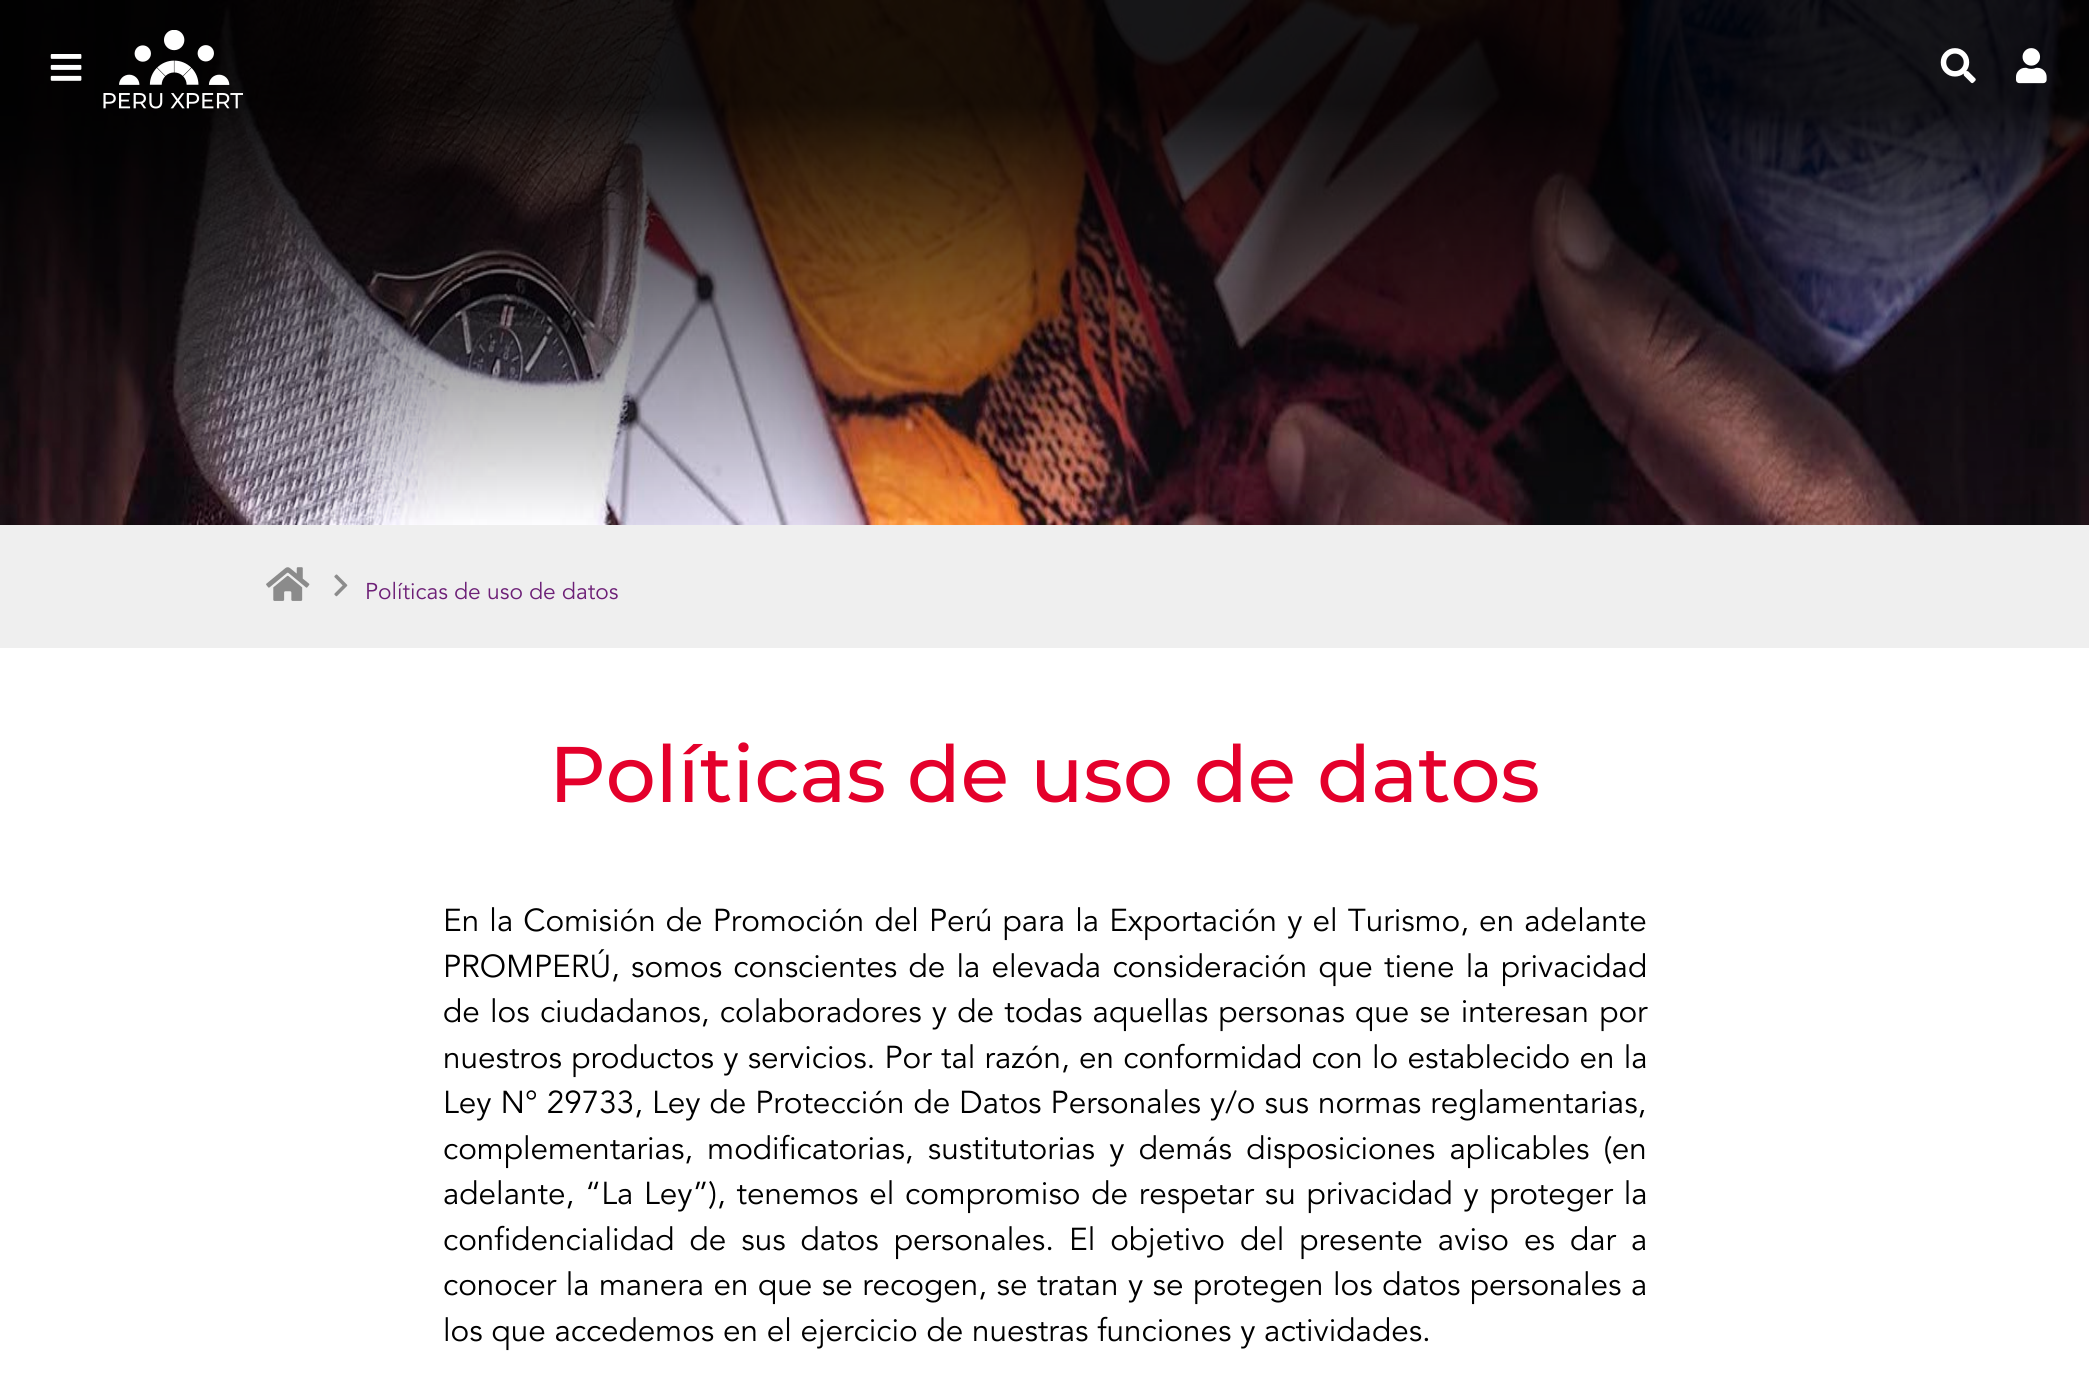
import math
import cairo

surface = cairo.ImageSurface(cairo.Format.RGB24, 2089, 1380)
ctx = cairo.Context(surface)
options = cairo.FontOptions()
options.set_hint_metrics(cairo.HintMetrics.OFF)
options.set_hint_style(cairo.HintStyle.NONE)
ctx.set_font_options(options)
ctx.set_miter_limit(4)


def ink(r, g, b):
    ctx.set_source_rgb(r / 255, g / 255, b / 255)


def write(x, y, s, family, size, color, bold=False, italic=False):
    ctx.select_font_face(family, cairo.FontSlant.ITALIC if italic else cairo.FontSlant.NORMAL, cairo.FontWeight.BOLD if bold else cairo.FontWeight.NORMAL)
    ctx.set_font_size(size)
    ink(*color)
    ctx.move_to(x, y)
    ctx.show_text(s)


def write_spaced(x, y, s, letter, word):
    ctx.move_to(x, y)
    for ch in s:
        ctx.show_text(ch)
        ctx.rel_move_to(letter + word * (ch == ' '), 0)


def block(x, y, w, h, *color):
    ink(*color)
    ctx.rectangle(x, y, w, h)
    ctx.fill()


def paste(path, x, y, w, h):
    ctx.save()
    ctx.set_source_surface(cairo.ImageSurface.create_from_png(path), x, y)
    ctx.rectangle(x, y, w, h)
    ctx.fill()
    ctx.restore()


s1 = dict(family="Avenir", size=22.75, color=(109, 32, 119))
s2 = dict(family="Montserrat Medium", size=78.75, color=(228, 0, 43))
s3 = dict(family="Avenir", size=31.5, color=(0, 0, 0))

ink(255, 255, 255)
ctx.paint()
paste("pic1.png", 0, 0, 2089, 525)
paste("pic2.png", 50, 54, 32, 27)
paste("pic3.png", 103, 30, 140, 79)
paste("pic4.png", 1940, 48, 36, 36)
paste("pic5.png", 2016, 48, 31, 36)
block(0, 525, 2089, 123, 239, 239, 239)
paste("pic6.png", 266, 567, 44, 34)
paste("pic7.png", 334, 574, 14, 23)
write(365, 599, "Políticas de uso de datos", **s1)
write(549, 802, "Políticas de uso de datos", **s2)
ctx.select_font_face("Avenir")
ctx.set_font_size(31.5)
ink(0, 0, 0)
write_spaced(443, 931, "En la Comisión de Promoción del Perú para la Exportación y el Turismo, en adelante", 0, 1.4)
write_spaced(443, 977, "PROMPERÚ, somos conscientes de la elevada consideración que tiene la privacidad", 0, 2.5)
write_spaced(443, 1022, "de los ciudadanos, colaboradores y de todas aquellas personas que se interesan por", 0, 1.5)
write_spaced(443, 1068, "nuestros productos y servicios. Por tal razón, en conformidad con lo establecido en la", 0, 0.5)
write_spaced(443, 1113, "Ley N° 29733, Ley de Protección de Datos Personales y/o sus normas reglamentarias,", 0, 0.3)
write_spaced(443, 1159, "complementarias, modificatorias, sustitutorias y demás disposiciones aplicables (en", 0, 5.5)
write_spaced(443, 1204, "adelante, “La Ley”), tenemos el compromiso de respetar su privacidad y proteger la", 0, 2)
write_spaced(443, 1250, "confidencialidad de sus datos personales. El objetivo del presente aviso es dar a", 0, 6.25)
write_spaced(443, 1295, "conocer la manera en que se recogen, se tratan y se protegen los datos personales a", 0, 0.75)
write(443, 1341, "los que accedemos en el ejercicio de nuestras funciones y actividades.", **s3)
surface.write_to_png("screenshot.png")
